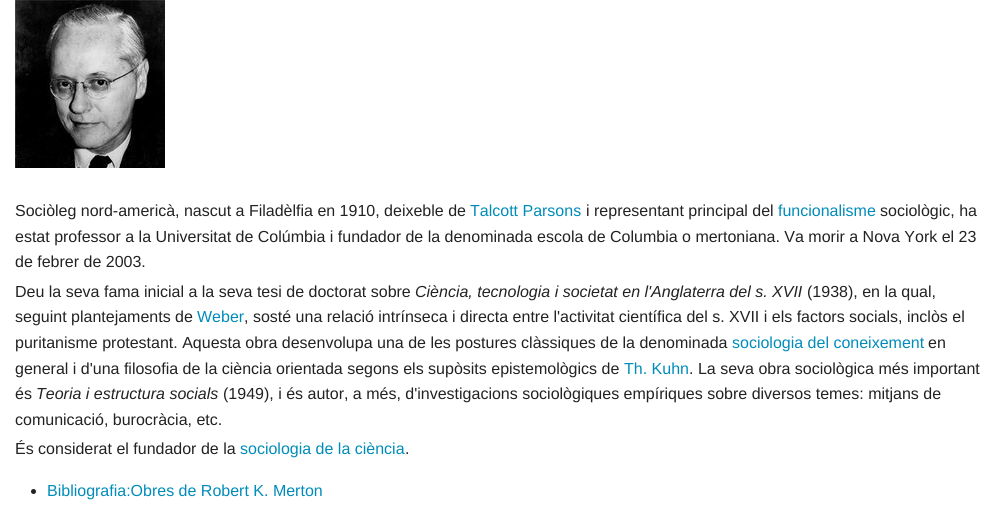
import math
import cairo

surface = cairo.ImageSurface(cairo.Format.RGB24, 995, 528)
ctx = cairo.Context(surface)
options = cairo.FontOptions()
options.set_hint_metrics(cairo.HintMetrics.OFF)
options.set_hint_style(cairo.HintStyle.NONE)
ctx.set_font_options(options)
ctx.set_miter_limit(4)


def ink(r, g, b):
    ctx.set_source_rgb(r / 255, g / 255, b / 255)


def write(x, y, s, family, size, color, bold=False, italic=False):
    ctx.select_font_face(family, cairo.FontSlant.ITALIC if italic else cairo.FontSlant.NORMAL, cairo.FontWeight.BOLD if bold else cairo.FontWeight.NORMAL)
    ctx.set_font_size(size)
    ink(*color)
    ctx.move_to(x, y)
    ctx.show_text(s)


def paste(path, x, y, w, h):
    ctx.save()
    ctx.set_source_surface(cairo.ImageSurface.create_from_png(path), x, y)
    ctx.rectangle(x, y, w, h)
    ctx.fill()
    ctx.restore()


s1 = dict(family="Liberation Sans", size=16, color=(34, 34, 34))
s2 = dict(family="Liberation Sans", size=16, color=(0, 140, 186))
s3 = dict(family="Liberation Sans", size=16, color=(34, 34, 34), italic=True)

ink(255, 255, 255)
ctx.paint()
paste("pic1.png", 15, 0, 150, 168)
write(15, 216, "Sociòleg nord-americà, nascut a Filadèlfia en 1910, deixeble de", **s1)
write(470, 216, "Talcott Parsons", **s2)
write(586, 216, "i representant principal del", **s1)
write(778, 216, "funcionalisme", **s2)
write(880, 216, "sociològic, ha", **s1)
write(15, 242, "estat professor a la Universitat de Colúmbia i fundador de la denominada escola de Columbia o mertoniana. Va morir a Nova York el 23", **s1)
write(15, 267, "de febrer de 2003.", **s1)
write(15, 297, "Deu la seva fama inicial a la seva tesi de doctorat sobre", **s1)
write(415, 297, "Ciència, tecnologia i societat en l'Anglaterra del s. XVII", **s3)
write(807, 297, "(1938), en la qual,", **s1)
write(15, 322, "seguint plantejaments de", **s1)
write(197, 322, "Weber", **s2)
write(244, 322, ", sosté una relació intrínseca i directa entre l'activitat científica del s. XVII i els factors socials, inclòs el", **s1)
write(15, 348, "puritanisme protestant. Aquesta obra desenvolupa una de les postures clàssiques de la denominada", **s1)
write(732, 348, "sociologia del coneixement", **s2)
write(928, 348, "en", **s1)
write(15, 374, "general i d'una filosofia de la ciència orientada segons els supòsits epistemològics de", **s1)
write(624, 374, "Th. Kuhn", **s2)
write(689, 374, ". La seva obra sociològica més important", **s1)
write(15, 399, "és", **s1)
write(36, 399, "Teoria i estructura socials", **s3)
write(223, 399, "(1949), i és autor, a més, d'investigacions sociològiques empíriques sobre diversos temes: mitjans de", **s1)
write(15, 425, "comunicació, burocràcia, etc.", **s1)
write(15, 454, "És considerat el fundador de la", **s1)
write(240, 454, "sociologia de la ciència", **s2)
write(405, 454, ".", **s1)
ctx.new_path()
ctx.arc(33.5, 491.5, 2.5, 0, 2 * math.pi)
ctx.fill()
write(47, 496, "Bibliografia:Obres de Robert K. Merton", **s2)
surface.write_to_png("screenshot.png")
